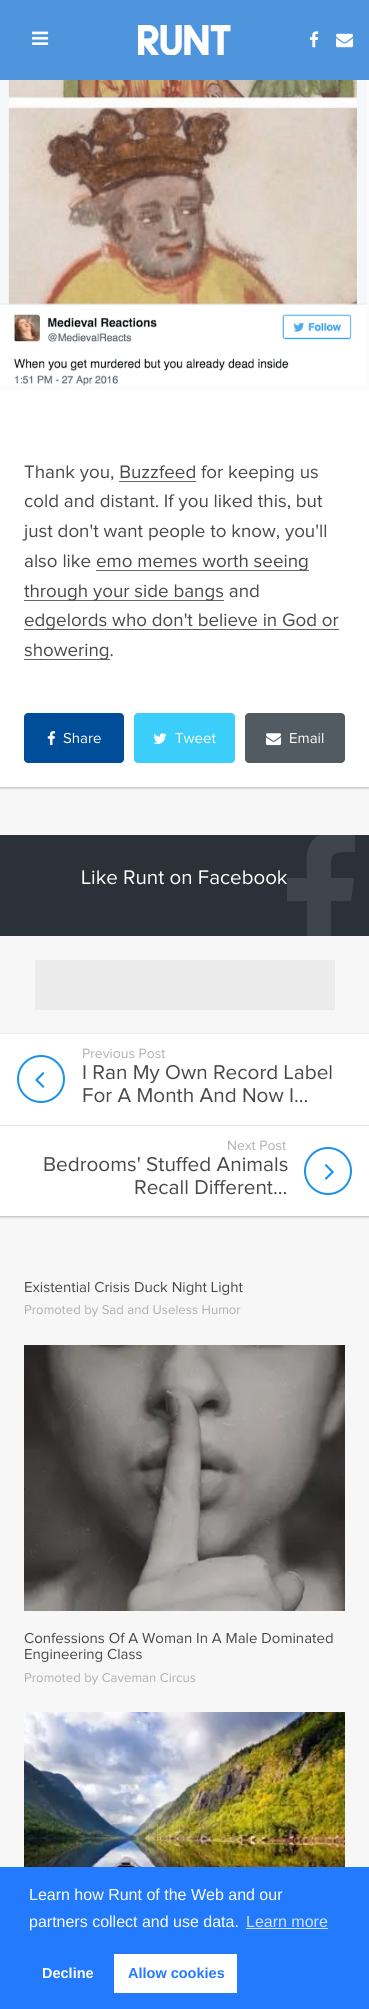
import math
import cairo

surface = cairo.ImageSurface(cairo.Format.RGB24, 369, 2009)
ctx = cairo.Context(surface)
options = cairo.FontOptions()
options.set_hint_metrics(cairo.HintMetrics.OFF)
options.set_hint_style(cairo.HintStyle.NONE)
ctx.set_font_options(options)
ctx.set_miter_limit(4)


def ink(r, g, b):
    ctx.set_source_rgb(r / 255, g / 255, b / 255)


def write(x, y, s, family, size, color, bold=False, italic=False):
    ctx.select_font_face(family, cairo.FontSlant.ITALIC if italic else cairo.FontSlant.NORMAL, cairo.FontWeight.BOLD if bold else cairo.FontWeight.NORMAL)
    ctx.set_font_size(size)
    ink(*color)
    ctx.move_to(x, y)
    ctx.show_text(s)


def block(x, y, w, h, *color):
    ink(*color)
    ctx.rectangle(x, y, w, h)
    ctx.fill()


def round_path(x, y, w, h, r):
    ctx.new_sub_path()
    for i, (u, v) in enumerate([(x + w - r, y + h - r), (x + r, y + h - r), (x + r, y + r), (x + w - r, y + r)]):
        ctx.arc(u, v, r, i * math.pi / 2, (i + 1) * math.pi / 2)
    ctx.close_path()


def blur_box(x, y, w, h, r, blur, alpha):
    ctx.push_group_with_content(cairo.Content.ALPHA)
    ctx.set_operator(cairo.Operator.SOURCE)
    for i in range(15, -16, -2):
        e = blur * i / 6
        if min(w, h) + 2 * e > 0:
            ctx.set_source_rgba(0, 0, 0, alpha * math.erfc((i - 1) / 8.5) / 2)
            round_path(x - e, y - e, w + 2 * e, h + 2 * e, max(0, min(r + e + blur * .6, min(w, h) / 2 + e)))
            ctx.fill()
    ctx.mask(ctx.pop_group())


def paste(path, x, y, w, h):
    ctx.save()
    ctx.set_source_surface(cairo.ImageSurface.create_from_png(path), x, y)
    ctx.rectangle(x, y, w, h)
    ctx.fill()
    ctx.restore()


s1 = dict(family="Proxima Nova", size=18.75, color=(72, 72, 72))
s2 = dict(family="Proxima Nova", size=15, color=(255, 255, 255))
s3 = dict(family="Proxima Nova", size=20.5, color=(255, 255, 255))
s4 = dict(family="Proxima Nova", size=14, color=(176, 176, 176))
s5 = dict(family="Proxima Nova", size=20.75, color=(72, 72, 72))
s6 = dict(family="Proxima Nova", size=15, color=(72, 72, 72))
s7 = dict(family="Proxima Nova", size=13.2, color=(176, 176, 176))
s8 = dict(family="Liberation Sans", size=16, color=(255, 255, 255))
s9 = dict(family="Liberation Sans", size=16, color=(211, 228, 254))
s10 = dict(family="Liberation Sans", size=14.5, color=(255, 255, 255), bold=True)
s11 = dict(family="Liberation Sans", size=14.5, color=(35, 122, 252), bold=True)

ink(247, 247, 247)
ctx.paint()
ink(0, 0, 0)
blur_box(0, -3, 369, 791, 0, 1, 0.18)
blur_box(0, -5, 369, 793, 0, 1.5, 0.12)
block(0, 0, 369, 80, 79, 149, 222)
paste("pic1.png", 32, 31, 17, 14)
paste("pic2.png", 138, 25, 93, 30)
paste("pic3.png", 309, 31, 10, 17)
paste("pic4.png", 336, 33, 18, 15)
block(0, 390, 369, 397, 255, 255, 255)
block(0, 80, 369, 310, 251, 251, 251)
paste("pic5.png", 0, 80, 367, 306)
write(24, 478, "Thank you, Buzzfeed for keeping us", **s1)
block(119, 481, 77, 1, 102, 102, 102)
write(24, 507, "cold and distant. If you liked this, but", **s1)
write(24, 537, "just don't want people to know, you'll", **s1)
write(24, 567, "also like", **s1)
block(96, 570, 213, 1, 102, 102, 102)
write(96, 567, "emo memes worth seeing", **s1)
block(24, 600, 200, 1, 102, 102, 102)
write(24, 597, "through your side bangs and", **s1)
block(24, 629, 315, 1, 102, 102, 102)
write(24, 626, "edgelords who don't believe in God or", **s1)
block(24, 659, 86, 1, 102, 102, 102)
write(24, 656, "showering.", **s1)
ink(0, 78, 153)
round_path(24, 713, 100, 50, 4)
ctx.fill()
paste("pic6.png", 47, 731, 9, 15)
write(63, 743, "Share", **s2)
ink(59, 206, 250)
round_path(134, 713, 101, 50, 4)
ctx.fill()
paste("pic7.png", 153, 733, 14, 11)
write(175, 743, "Tweet", **s2)
ink(83, 91, 98)
round_path(245, 713, 100, 50, 4)
ctx.fill()
paste("pic8.png", 266, 733, 16, 13)
write(289, 743, "Email", **s2)
block(0, 835, 369, 101, 42, 49, 57)
write(81, 884, "Like Runt on Facebook", **s3)
ctx.save()
ctx.rectangle(249, 835, 120, 101)
ctx.clip()
ctx.set_source_rgba(1, 1, 1, 0.1)
ctx.new_path()
ctx.move_to(355, 831)
ctx.line_to(355, 852)
ctx.curve_to(328, 852, 331, 852, 331, 878)
ctx.line_to(354, 878)
ctx.line_to(351, 901)
ctx.line_to(331, 901)
ctx.line_to(331, 961)
ctx.line_to(307, 961)
ctx.line_to(307, 901)
ctx.line_to(287, 901)
ctx.line_to(287, 878)
ctx.line_to(307, 878)
ctx.curve_to(307, 870, 306, 862, 307, 854)
ctx.curve_to(311, 829, 335, 828, 355, 831)
ctx.close_path()
ctx.fill()
ctx.restore()
block(35, 960, 300, 50, 235, 235, 235)
ink(0, 0, 0)
blur_box(0, 1035, 369, 182, 0, 1, 0.18)
blur_box(0, 1035, 369, 182, 0, 1.5, 0.12)
block(0, 1034, 369, 182, 255, 255, 255)
ctx.arc(41, 1079, 23, 0, 2 * math.pi)
ink(24, 147, 231)
ctx.stroke()
paste("pic9.png", 35, 1072, 10, 16)
write(82, 1058, "Previous Post", **s4)
write(82, 1079, "I Ran My Own Record Label", **s5)
write(82, 1102, "For A Month And Now I...", **s5)
block(0, 1125, 369, 1, 232, 232, 232)
write(227, 1150, "Next Post", **s4)
write(43, 1171, "Bedrooms' Stuffed Animals", **s5)
write(134, 1194, "Recall Different...", **s5)
ctx.new_path()
ctx.arc(328, 1171, 23, 0, 2 * math.pi)
ink(24, 147, 231)
ctx.stroke()
paste("pic10.png", 324, 1164, 10, 16)
write(24, 1292, "Existential Crisis Duck Night Light", **s6)
write(24, 1314, "Promoted by Sad and Useless Humor", **s7)
paste("pic11.png", 24, 1345, 321, 266)
write(24, 1643, "Confessions Of A Woman In A Male Dominated", **s6)
write(24, 1659, "Engineering Class", **s6)
write(24, 1682, "Promoted by Caveman Circus", **s7)
paste("pic12.png", 24, 1712, 321, 155)
block(0, 1867, 369, 142, 35, 122, 252)
write(29, 1900, "Learn how Runt of the Web and our", **s8)
write(29, 1927, "partners collect and use data.", **s8)
write(246, 1927, "Learn more", **s9)
block(246, 1928, 82, 1, 211, 228, 254)
write(42, 1978, "Decline", **s10)
block(114, 1954, 123, 39, 255, 255, 255)
write(128, 1978, "Allow cookies", **s11)
surface.write_to_png("screenshot.png")
